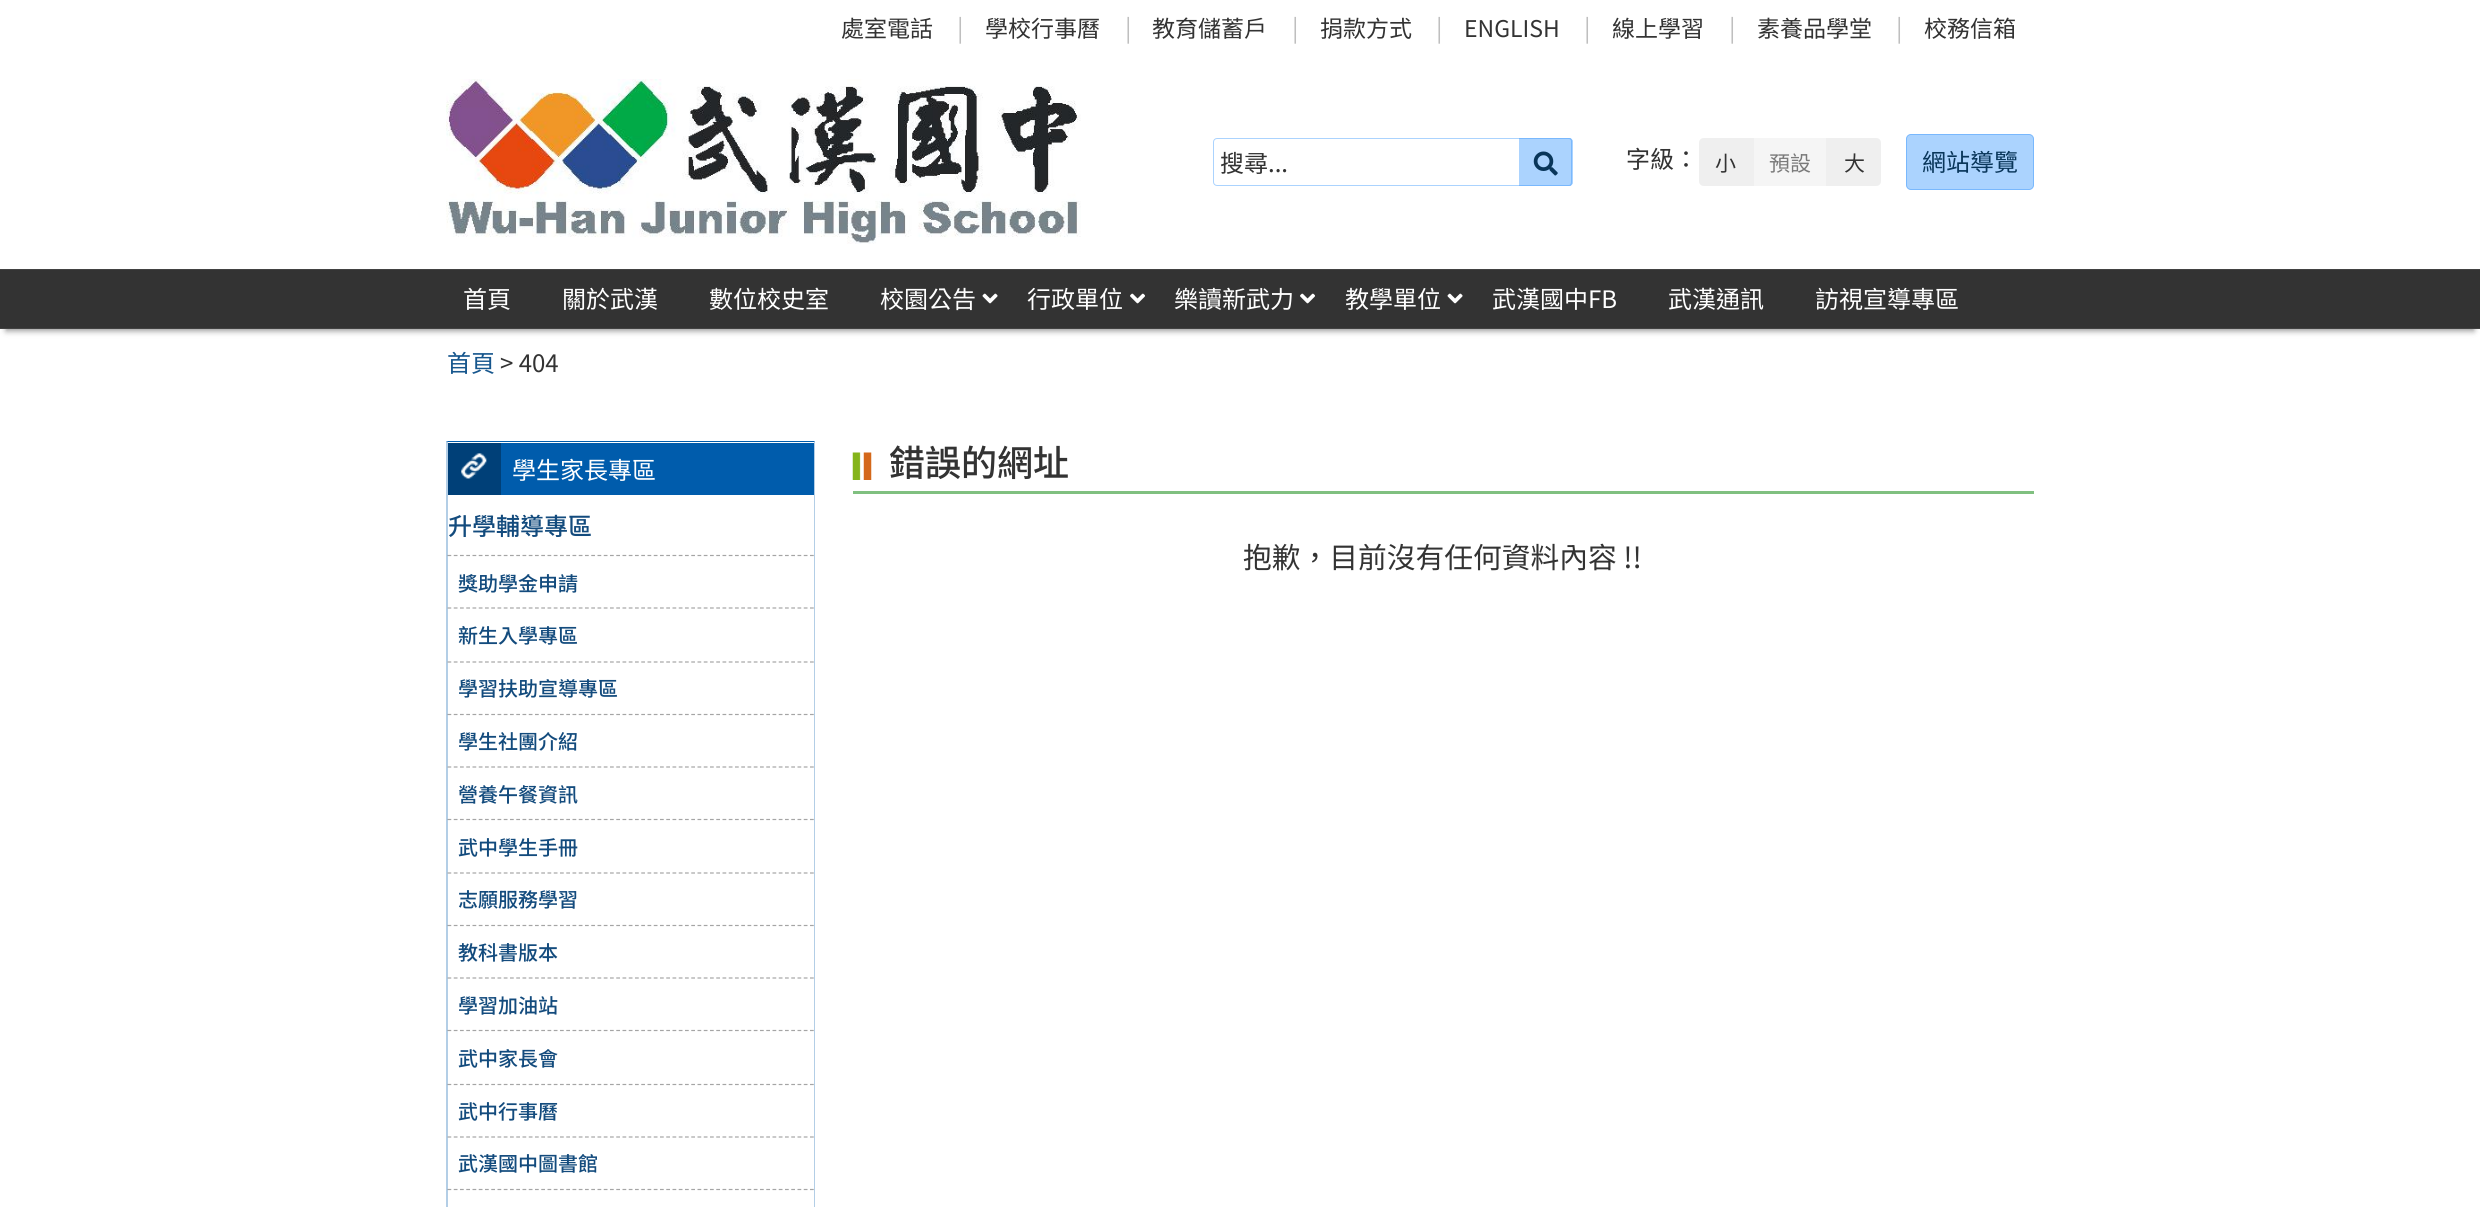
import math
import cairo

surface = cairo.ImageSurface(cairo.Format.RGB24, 2480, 1207)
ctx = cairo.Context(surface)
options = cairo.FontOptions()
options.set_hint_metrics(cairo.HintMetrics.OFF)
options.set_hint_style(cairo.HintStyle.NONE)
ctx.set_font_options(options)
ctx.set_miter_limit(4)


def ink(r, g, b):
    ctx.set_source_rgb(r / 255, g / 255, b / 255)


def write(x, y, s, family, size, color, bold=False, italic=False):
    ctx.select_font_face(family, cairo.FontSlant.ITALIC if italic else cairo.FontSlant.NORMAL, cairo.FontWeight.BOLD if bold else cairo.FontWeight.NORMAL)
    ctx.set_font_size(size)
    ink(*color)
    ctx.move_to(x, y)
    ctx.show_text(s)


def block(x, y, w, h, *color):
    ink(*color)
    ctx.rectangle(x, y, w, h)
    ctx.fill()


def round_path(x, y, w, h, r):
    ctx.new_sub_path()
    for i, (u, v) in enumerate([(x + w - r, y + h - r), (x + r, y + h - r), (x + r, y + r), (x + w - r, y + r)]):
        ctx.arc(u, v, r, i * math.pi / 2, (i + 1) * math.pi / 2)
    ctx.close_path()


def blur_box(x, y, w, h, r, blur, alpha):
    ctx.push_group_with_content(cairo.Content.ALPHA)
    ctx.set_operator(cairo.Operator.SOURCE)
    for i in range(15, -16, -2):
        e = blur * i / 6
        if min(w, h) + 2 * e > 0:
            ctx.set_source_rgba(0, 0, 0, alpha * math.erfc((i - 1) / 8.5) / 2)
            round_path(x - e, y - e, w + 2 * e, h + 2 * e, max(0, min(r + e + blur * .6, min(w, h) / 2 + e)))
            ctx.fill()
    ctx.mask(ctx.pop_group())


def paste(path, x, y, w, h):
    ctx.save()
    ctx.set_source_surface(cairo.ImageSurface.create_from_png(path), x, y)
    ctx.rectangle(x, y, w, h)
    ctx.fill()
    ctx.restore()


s1 = dict(family="Noto Sans TC", size=23, color=(51, 51, 51))
s2 = dict(family="Noto Sans TC", size=24, color=(191, 191, 191))
s3 = dict(family="Noto Sans TC", size=24, color=(51, 51, 51))
s4 = dict(family="Noto Sans TC", size=21, color=(51, 51, 51))
s5 = dict(family="Noto Sans TC", size=21, color=(122, 122, 122))
s6 = dict(family="Noto Sans TC", size=24, color=(9, 54, 90))
s7 = dict(family="Noto Sans TC", size=24, color=(255, 255, 255))
s8 = dict(family="Noto Sans TC", size=24, color=(22, 86, 141))
s9 = dict(family="Noto Sans TC Medium", size=24, color=(19, 75, 125))
s10 = dict(family="Noto Sans TC Medium", size=20, color=(19, 75, 125))
s11 = dict(family="Noto Sans TC Medium", size=36, color=(51, 51, 51))
s12 = dict(family="Noto Sans TC", size=28.75, color=(51, 51, 51))

ink(255, 255, 255)
ctx.paint()
block(1754, 138, 72, 48, 245, 245, 245)
write(841, 37, "處室電話", **s1)
write(957, 37, "|", **s2)
write(985, 37, "學校行事曆", **s1)
write(1125, 37, "|", **s2)
write(1152, 37, "教育儲蓄戶", **s1)
write(1292, 37, "|", **s2)
write(1320, 37, "捐款方式", **s1)
write(1436, 37, "|", **s2)
write(1464, 37, "ENGLISH", **s1)
write(1584, 37, "|", **s2)
write(1612, 37, "線上學習", **s1)
write(1729, 37, "|", **s2)
write(1757, 37, "素養品學堂", **s1)
write(1896, 37, "|", **s2)
write(1924, 37, "校務信箱", **s1)
paste("pic1.png", 446, 79, 635, 165)
round_path(1213.5, 138.5, 359, 47, 3.5)
ink(171, 211, 254)
ctx.set_line_width(1)
ctx.stroke()
write(1220, 172, "搜尋...", **s3)
ink(171, 211, 254)
ctx.new_path()
ctx.move_to(1519, 138)
ctx.line_to(1569, 138)
ctx.curve_to(1571, 138, 1573, 140, 1573, 142)
ctx.line_to(1573, 182)
ctx.curve_to(1573, 184, 1571, 186, 1569, 186)
ctx.line_to(1519, 186)
ctx.close_path()
ctx.fill()
ink(121, 184, 253)
ctx.set_fill_rule(cairo.FillRule.EVEN_ODD)
ctx.new_path()
ctx.move_to(1519, 138)
ctx.line_to(1569, 138)
ctx.curve_to(1571, 138, 1572, 139, 1572, 141)
ctx.line_to(1572, 182)
ctx.curve_to(1572, 185, 1571, 186, 1569, 186)
ctx.line_to(1519, 186)
ctx.close_path()
ctx.move_to(1519, 139)
ctx.line_to(1569, 139)
ctx.curve_to(1570, 139, 1571, 140, 1571, 141)
ctx.line_to(1571, 182)
ctx.curve_to(1571, 184, 1570, 185, 1569, 185)
ctx.line_to(1519, 185)
ctx.close_path()
ctx.fill()
paste("pic2.png", 1533, 151, 25, 25)
write(1626, 168, "字級：", **s3)
ink(239, 239, 239)
ctx.new_path()
ctx.move_to(1704, 138)
ctx.line_to(1754, 138)
ctx.line_to(1754, 186)
ctx.line_to(1704, 186)
ctx.curve_to(1701, 186, 1699, 184, 1699, 181)
ctx.line_to(1699, 143)
ctx.curve_to(1699, 140, 1701, 138, 1704, 138)
ctx.close_path()
ctx.fill()
write(1715, 171, "小", **s4)
write(1769, 171, "預設", **s5)
ink(239, 239, 239)
ctx.new_path()
ctx.move_to(1826, 138)
ctx.line_to(1876, 138)
ctx.curve_to(1879, 138, 1881, 140, 1881, 143)
ctx.line_to(1881, 181)
ctx.curve_to(1881, 184, 1879, 186, 1876, 186)
ctx.line_to(1826, 186)
ctx.close_path()
ctx.fill()
write(1844, 171, "大", **s4)
ink(171, 211, 254)
round_path(1906.5, 134.5, 127, 55, 4.5)
ctx.fill_preserve()
ink(121, 184, 253)
ctx.stroke()
write(1922, 171, "網站導覽", **s6)
ink(0, 0, 0)
blur_box(6, 284, 2468, 47, 0, 3, 0.4)
block(0, 270, 2480, 58, 51, 51, 51)
block(0, 269, 2480, 1, 66, 66, 66)
block(0, 328, 2480, 1, 66, 66, 66)
write(463, 308, "首頁", **s7)
write(562, 308, "關於武漢", **s7)
write(709, 308, "數位校史室", **s7)
write(880, 308, "校園公告", **s7)
paste("pic3.png", 982, 293, 16, 11)
write(1027, 308, "行政單位", **s7)
paste("pic4.png", 1130, 293, 15, 11)
write(1174, 308, "樂讀新武力", **s7)
paste("pic4.png", 1300, 293, 15, 11)
write(1345, 308, "教學單位", **s7)
paste("pic3.png", 1447, 293, 16, 11)
write(1492, 308, "武漢國中FB", **s7)
write(1668, 308, "武漢通訊", **s7)
write(1815, 308, "訪視宣導專區", **s7)
write(447, 372, "首頁", **s8)
write(500, 372, "> 404", **s3)
ink(0, 92, 172)
ctx.set_fill_rule(cairo.FillRule.WINDING)
ctx.new_path()
ctx.move_to(446, 441)
ctx.line_to(815, 441)
ctx.line_to(814, 442)
ctx.line_to(448, 442)
ctx.close_path()
ctx.fill()
ctx.set_source_rgba(0, 0.361, 0.675, 0.3)
ctx.new_path()
ctx.move_to(815, 441)
ctx.line_to(815, 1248)
ctx.line_to(814, 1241)
ctx.line_to(814, 442)
ctx.close_path()
ctx.fill()
ctx.new_path()
ctx.move_to(446, 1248)
ctx.line_to(446, 441)
ctx.line_to(448, 442)
ctx.line_to(448, 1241)
ctx.close_path()
ctx.fill()
block(501, 443, 313, 52, 0, 92, 172)
block(448, 443, 53, 52, 0, 64, 120)
paste("pic5.png", 461, 453, 26, 26)
write(512, 479, "學生家長專區", **s7)
ctx.new_path()
ctx.move_to(447.5, 555.5)
ctx.line_to(814, 555.5)
ctx.set_source_rgba(0.498, 0.498, 0.498, 0.7)
ctx.set_line_width(1.2)
ctx.set_dash([3.75, 2.5])
ctx.stroke()
write(448, 535, "升學輔導專區", **s9)
ctx.new_path()
ctx.move_to(447.5, 608)
ctx.line_to(814, 608)
ink(165, 165, 165)
ctx.stroke()
write(458, 591, "獎助學金申請", **s10)
ctx.new_path()
ctx.move_to(447.5, 662)
ctx.line_to(814, 662)
ink(165, 165, 165)
ctx.stroke()
write(458, 643, "新生入學專區", **s10)
ctx.new_path()
ctx.move_to(447.5, 714.5)
ctx.line_to(814, 714.5)
ctx.set_source_rgba(0.498, 0.498, 0.498, 0.7)
ctx.stroke()
write(458, 696, "學習扶助宣導專區", **s10)
ctx.new_path()
ctx.move_to(447.5, 767)
ctx.line_to(814, 767)
ink(165, 165, 165)
ctx.stroke()
write(458, 749, "學生社團介紹", **s10)
ctx.new_path()
ctx.move_to(447.5, 819.5)
ctx.line_to(814, 819.5)
ctx.set_source_rgba(0.498, 0.498, 0.498, 0.7)
ctx.stroke()
write(458, 802, "營養午餐資訊", **s10)
ctx.new_path()
ctx.move_to(447.5, 873)
ctx.line_to(814, 873)
ink(165, 165, 165)
ctx.stroke()
write(458, 855, "武中學生手冊", **s10)
ctx.new_path()
ctx.move_to(447.5, 925.5)
ctx.line_to(814, 925.5)
ctx.set_source_rgba(0.498, 0.498, 0.498, 0.7)
ctx.stroke()
write(458, 907, "志願服務學習", **s10)
ctx.new_path()
ctx.move_to(447.5, 978)
ctx.line_to(814, 978)
ink(165, 165, 165)
ctx.stroke()
write(458, 960, "教科書版本", **s10)
ctx.new_path()
ctx.move_to(447.5, 1030.5)
ctx.line_to(814, 1030.5)
ctx.set_source_rgba(0.498, 0.498, 0.498, 0.7)
ctx.stroke()
write(458, 1013, "學習加油站", **s10)
ctx.new_path()
ctx.move_to(447.5, 1084.5)
ctx.line_to(814, 1084.5)
ctx.set_source_rgba(0.498, 0.498, 0.498, 0.7)
ctx.stroke()
write(458, 1066, "武中家長會", **s10)
ctx.new_path()
ctx.move_to(447.5, 1137)
ctx.line_to(814, 1137)
ink(165, 165, 165)
ctx.stroke()
write(458, 1119, "武中行事曆", **s10)
ctx.new_path()
ctx.move_to(447.5, 1189.5)
ctx.line_to(814, 1189.5)
ctx.set_source_rgba(0.498, 0.498, 0.498, 0.7)
ctx.stroke()
write(458, 1171, "武漢國中圖書館", **s10)
block(853, 491, 1181, 3, 128, 192, 128)
paste("pic6.png", 852, 452, 20, 28)
write(889, 476, "錯誤的網址", **s11)
write(1243, 568, "抱歉，目前沒有任何資料內容 !!", **s12)
surface.write_to_png("screenshot.png")
